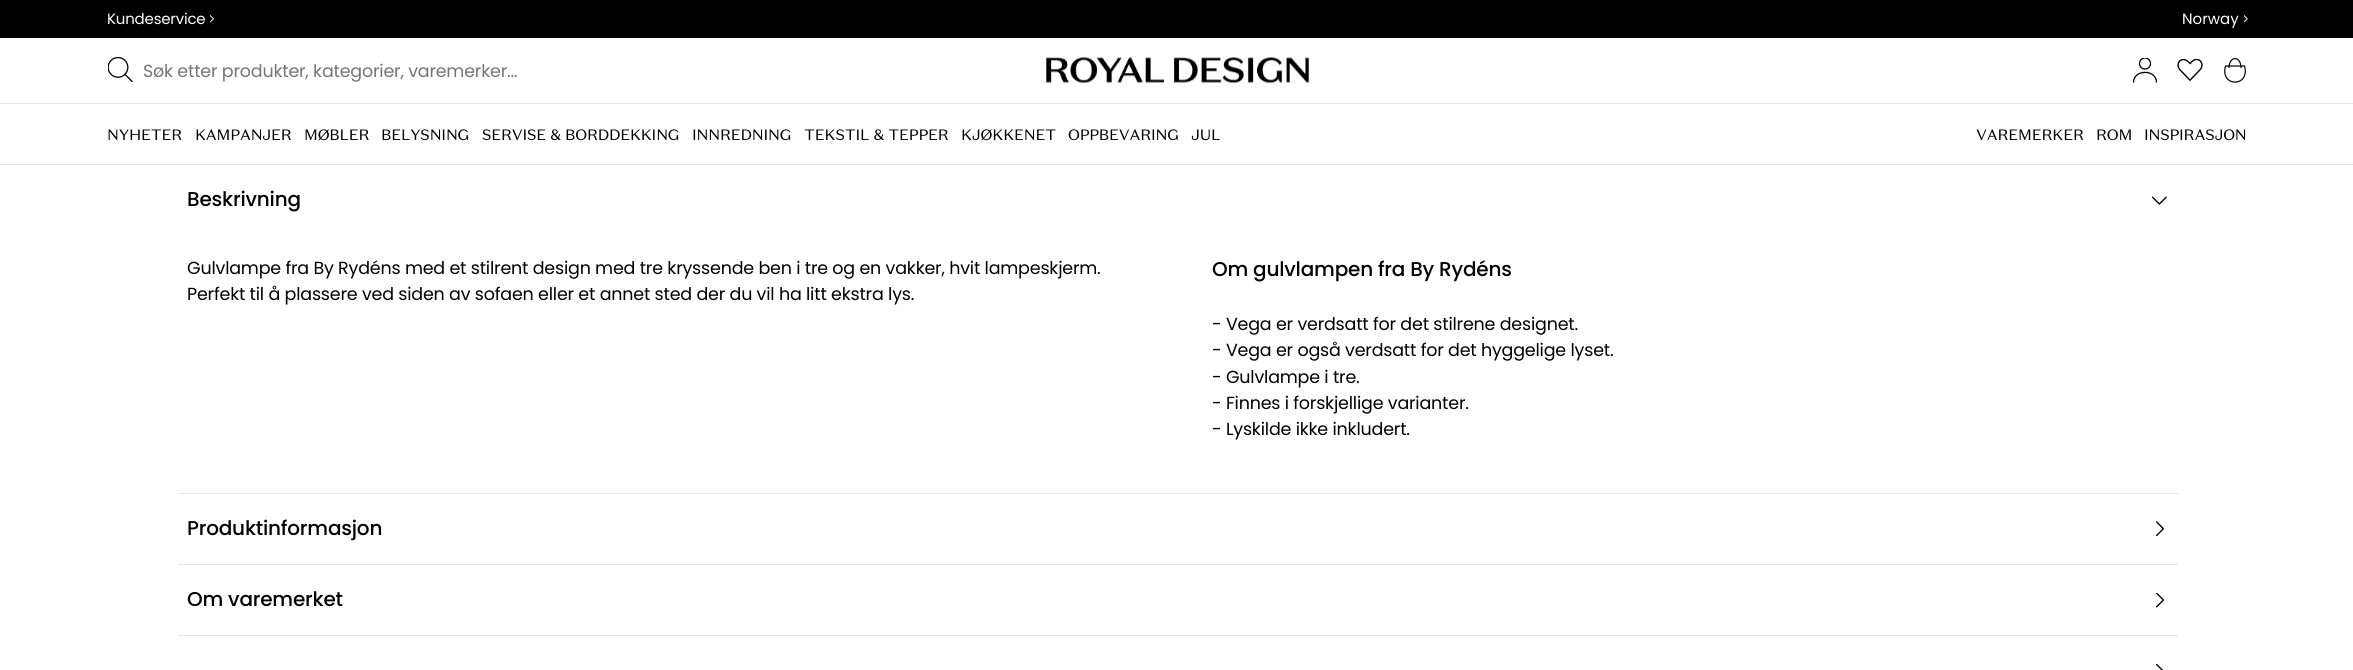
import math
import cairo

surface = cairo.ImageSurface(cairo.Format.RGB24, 2353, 670)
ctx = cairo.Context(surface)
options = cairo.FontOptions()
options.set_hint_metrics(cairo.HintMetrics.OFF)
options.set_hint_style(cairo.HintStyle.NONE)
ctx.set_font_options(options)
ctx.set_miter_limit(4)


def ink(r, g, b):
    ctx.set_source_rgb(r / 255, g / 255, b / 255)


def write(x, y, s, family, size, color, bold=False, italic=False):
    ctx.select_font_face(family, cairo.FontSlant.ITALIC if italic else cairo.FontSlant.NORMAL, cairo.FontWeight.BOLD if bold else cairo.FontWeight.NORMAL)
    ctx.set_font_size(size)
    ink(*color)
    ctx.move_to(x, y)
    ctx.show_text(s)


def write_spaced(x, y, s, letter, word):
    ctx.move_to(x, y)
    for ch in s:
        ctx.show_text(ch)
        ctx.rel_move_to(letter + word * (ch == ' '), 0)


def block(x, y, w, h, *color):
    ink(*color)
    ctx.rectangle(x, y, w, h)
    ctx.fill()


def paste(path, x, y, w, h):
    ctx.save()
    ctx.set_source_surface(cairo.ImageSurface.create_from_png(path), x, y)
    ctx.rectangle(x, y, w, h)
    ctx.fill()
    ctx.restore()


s1 = dict(family="Poppins", size=15, color=(255, 255, 255))

ink(255, 255, 255)
ctx.paint()
block(0, 0, 2353, 38, 0, 0, 0)
ctx.select_font_face("Poppins")
ctx.set_font_size(15)
ink(255, 255, 255)
write_spaced(107, 24, "Kundeservice", -0.2, 0)
paste("pic1.png", 210, 15, 4, 8)
write(2182, 24, "Norway", **s1)
paste("pic2.png", 2244, 15, 4, 8)
paste("pic3.png", 108, 57, 25, 25)
ctx.set_font_size(17.5)
ink(117, 117, 117)
write_spaced(143, 77, "Søk etter produkter, kategorier, varemerker...", -0.2, 0)
paste("pic4.png", 1046, 57, 263, 27)
ctx.new_path()
ctx.move_to(2133.5, 82.5)
ctx.curve_to(2133.5, 69, 2156.5, 69, 2156.5, 82.5)
ink(0, 0, 0)
ctx.set_line_width(1.3)
ctx.stroke()
ctx.save()
ctx.rectangle(2131, 58, 27, 25)
ctx.clip()
ctx.arc(2145, 63.5, 5.5, 0, 2 * math.pi)
ctx.stroke()
ctx.restore()
paste("pic5.png", 2177, 59, 26, 22)
ctx.new_path()
ctx.move_to(2225.5, 66)
ctx.curve_to(2219.5, 87.5, 2250.5, 87.5, 2244.5, 66)
ctx.close_path()
ctx.set_line_width(1.2)
ctx.set_line_join(cairo.LineJoin.ROUND)
ctx.stroke()
ctx.new_path()
ctx.move_to(2229, 68)
ctx.curve_to(2229, 55.5, 2241, 55.5, 2241, 68)
ctx.set_line_join(cairo.LineJoin.MITER)
ctx.stroke()
block(0, 103, 2353, 1, 229, 229, 229)
block(0, 164, 2353, 1, 229, 229, 229)
ctx.select_font_face("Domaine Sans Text")
ctx.set_font_size(15)
ink(0, 0, 0)
write_spaced(107, 140, "NYHETER", -0.2, 0)
write_spaced(195, 140, "KAMPANJER", -0.2, 0)
write_spaced(304, 140, "MØBLER", -0.2, 0)
write_spaced(381, 140, "BELYSNING", -0.2, 0)
write_spaced(482, 140, "SERVISE & BORDDEKKING", -0.2, 0)
write_spaced(692, 140, "INNREDNING", -0.2, 0)
write_spaced(804, 140, "TEKSTIL & TEPPER", -0.2, 0)
write_spaced(961, 140, "KJØKKENET", -0.2, 0)
write_spaced(1068, 140, "OPPBEVARING", -0.2, 0)
write_spaced(1191, 140, "JUL", -0.2, 0)
write_spaced(1976, 140, "VAREMERKER", -0.2, 0)
write_spaced(2096, 140, "ROM", -0.2, 0)
write_spaced(2144, 140, "INSPIRASJON", -0.2, 0)
ctx.select_font_face("Poppins Medium")
ctx.set_font_size(20)
write_spaced(187, 206, "Beskrivning", -0.2, 0)
paste("pic6.png", 2152, 196, 15, 9)
ctx.select_font_face("Poppins")
ctx.set_font_size(17.5)
write_spaced(187, 274, "Gulvlampe fra By Rydéns med et stilrent design med tre kryssende ben i tre og en vakker, hvit lampeskjerm.", -0.2, 0)
ctx.select_font_face("Poppins Medium")
ctx.set_font_size(20)
write_spaced(1212, 276, "Om gulvlampen fra By Rydéns", -0.2, 0)
ctx.select_font_face("Poppins")
ctx.set_font_size(17.5)
write_spaced(187, 300, "Perfekt til å plassere ved siden av sofaen eller et annet sted der du vil ha litt ekstra lys.", -0.2, 0)
write_spaced(1212, 330, "- Vega er verdsatt for det stilrene designet.", -0.2, 0)
write_spaced(1212, 356, "- Vega er også verdsatt for det hyggelige lyset.", -0.2, 0)
write_spaced(1212, 383, "- Gulvlampe i tre.", -0.2, 0)
write_spaced(1212, 409, "- Finnes i forskjellige varianter.", -0.2, 0)
write_spaced(1212, 435, "- Lyskilde ikke inkludert.", -0.2, 0)
block(178, 493, 2000, 1, 229, 229, 229)
ctx.select_font_face("Poppins Medium")
ctx.set_font_size(20)
ink(0, 0, 0)
write_spaced(187, 535, "Produktinformasjon", -0.2, 0)
paste("pic7.png", 2156, 521, 8, 15)
block(178, 564, 2000, 1, 229, 229, 229)
ink(0, 0, 0)
write_spaced(187, 606, "Om varemerket", -0.2, 0)
paste("pic8.png", 2156, 593, 8, 15)
block(178, 635, 2000, 1, 229, 229, 229)
paste("pic9.png", 2156, 664, 7, 6)
surface.write_to_png("screenshot.png")
